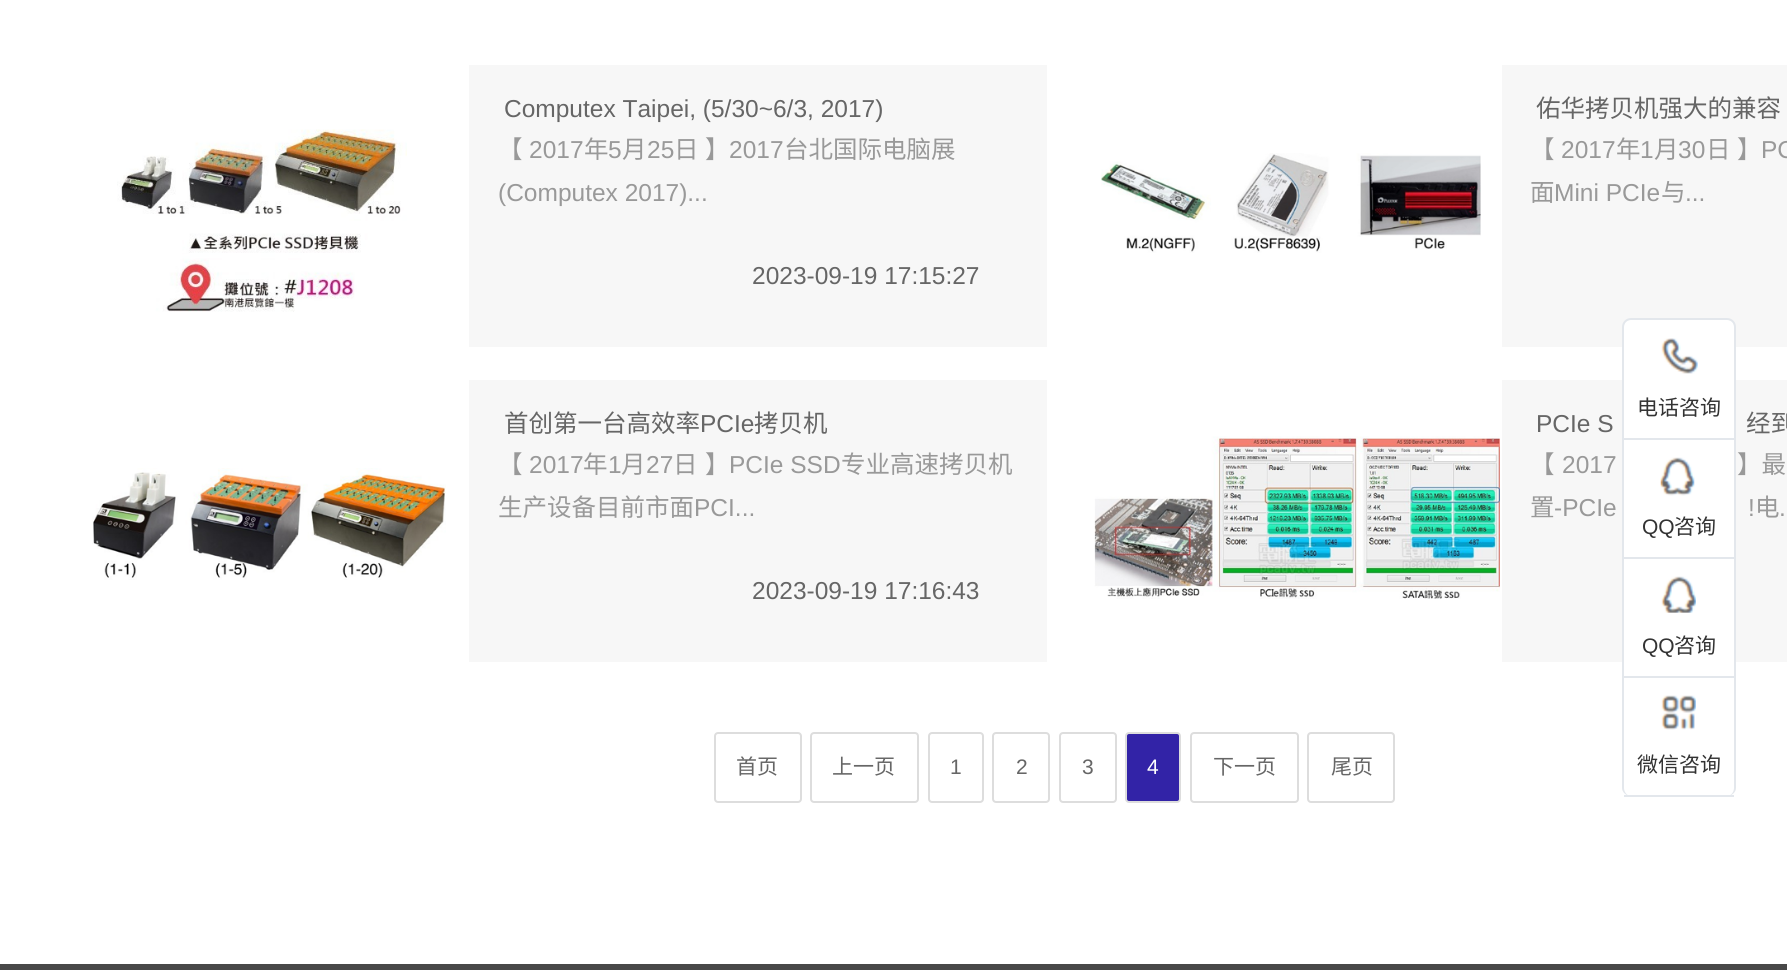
import math
import cairo

surface = cairo.ImageSurface(cairo.Format.RGB24, 1787, 970)
ctx = cairo.Context(surface)
options = cairo.FontOptions()
options.set_hint_metrics(cairo.HintMetrics.OFF)
options.set_hint_style(cairo.HintStyle.NONE)
ctx.set_font_options(options)
ctx.set_miter_limit(4)


def ink(r, g, b):
    ctx.set_source_rgb(r / 255, g / 255, b / 255)


def write(x, y, s, family, size, color, bold=False, italic=False):
    ctx.select_font_face(family, cairo.FontSlant.ITALIC if italic else cairo.FontSlant.NORMAL, cairo.FontWeight.BOLD if bold else cairo.FontWeight.NORMAL)
    ctx.set_font_size(size)
    ink(*color)
    ctx.move_to(x, y)
    ctx.show_text(s)


def write_spaced(x, y, s, letter, word):
    ctx.move_to(x, y)
    for ch in s:
        ctx.show_text(ch)
        ctx.rel_move_to(letter + word * (ch == ' '), 0)


def block(x, y, w, h, *color):
    ink(*color)
    ctx.rectangle(x, y, w, h)
    ctx.fill()


def round_path(x, y, w, h, r):
    ctx.new_sub_path()
    for i, (u, v) in enumerate([(x + w - r, y + h - r), (x + r, y + h - r), (x + r, y + r), (x + w - r, y + r)]):
        ctx.arc(u, v, r, i * math.pi / 2, (i + 1) * math.pi / 2)
    ctx.close_path()


def paste(path, x, y, w, h):
    ctx.save()
    ctx.set_source_surface(cairo.ImageSurface.create_from_png(path), x, y)
    ctx.rectangle(x, y, w, h)
    ctx.fill()
    ctx.restore()


s1 = dict(family="Liberation Sans", size=24.5, color=(102, 102, 102))
s2 = dict(family="Noto Sans CJK SC", size=24.5, color=(153, 153, 153))
s3 = dict(family="Liberation Sans", size=24.5, color=(153, 153, 153))
s4 = dict(family="Noto Sans CJK SC", size=24.5, color=(102, 102, 102))
s5 = dict(family="Noto Sans CJK SC", size=21, color=(102, 102, 102))
s6 = dict(family="Liberation Sans", size=21, color=(102, 102, 102))
s7 = dict(family="Liberation Sans", size=21, color=(255, 255, 255))
s8 = dict(family="Noto Sans CJK SC", size=21, color=(51, 51, 51))
s9 = dict(family="Liberation Sans", size=21, color=(51, 51, 51))

ink(255, 255, 255)
ctx.paint()
paste("pic1.png", 117, 129, 290, 183)
block(469, 65, 578, 282, 247, 247, 247)
write(504, 117, "Computex Taipei, (5/30~6/3, 2017)", **s1)
write(498, 158, "【", **s2)
write(529, 158, "2017", **s3)
write(584, 158, "年", **s2)
write(608, 158, "5", **s3)
write(622, 158, "月", **s2)
write(647, 158, "25", **s3)
ctx.select_font_face("Noto Sans CJK SC")
write_spaced(674, 158, "日 】", 0, 1)
write(729, 158, "2017", **s3)
write(784, 158, "台北国际电脑展", **s2)
write(498, 201, "(Computex 2017)...", **s3)
write(752, 284, "2023-09-19 17:15:27", **s1)
paste("pic2.png", 1101, 153, 380, 100)
block(1502, 65, 285, 282, 247, 247, 247)
write(1536, 117, "佑华拷贝机强大的兼容", **s4)
write(1530, 158, "【", **s2)
write(1561, 158, "2017", **s3)
write(1616, 158, "年", **s2)
write(1640, 158, "1", **s3)
write(1654, 158, "月", **s2)
write(1678, 158, "30", **s3)
write(1706, 158, "日", **s2)
write(1737, 158, "】", **s2)
write(1761, 158, "PC", **s3)
write(1530, 201, "面", **s2)
write(1554, 201, "Mini PCIe", **s3)
write(1661, 201, "与", **s2)
write(1685, 201, "...", **s3)
paste("pic3.png", 92, 468, 354, 112)
block(469, 380, 578, 282, 247, 247, 247)
write(504, 432, "首创第一台高效率", **s4)
write(700, 432, "PCIe", **s1)
write(754, 432, "拷贝机", **s4)
write(498, 473, "【", **s2)
write(529, 473, "2017", **s3)
write(583, 473, "年", **s2)
write(608, 473, "1", **s3)
write(621, 473, "月", **s2)
write(646, 473, "27", **s3)
write(673, 473, "日", **s2)
write(705, 473, "】", **s2)
write(729, 473, "PCIe SSD", **s3)
write(841, 473, "专业高速拷贝机", **s2)
write(498, 516, "生产设备目前市面", **s2)
write(694, 516, "PCI...", **s3)
write(752, 599, "2023-09-19 17:16:43", **s1)
paste("pic4.png", 1094, 436, 406, 163)
block(1502, 380, 285, 282, 247, 247, 247)
write(1536, 432, "PCIe S", **s1)
write(1746, 432, "经到", **s4)
write(1530, 473, "【", **s2)
write(1562, 473, "2017", **s3)
ctx.select_font_face("Noto Sans CJK SC")
write_spaced(1737, 473, "】最", 0, 1)
write(1530, 516, "置", **s2)
write(1554, 516, "-PCIe", **s3)
write(1748, 516, "!", **s3)
write(1755, 516, "电", **s2)
write(1779, 516, ".", **s3)
round_path(715, 733, 86, 69, 3)
ink(221, 221, 221)
ctx.stroke()
write(736, 774, "首页", **s5)
round_path(811, 733, 107, 69, 3)
ink(221, 221, 221)
ctx.stroke()
write(832, 774, "上一页", **s5)
round_path(929, 733, 54, 69, 3)
ink(221, 221, 221)
ctx.stroke()
write(950, 774, "1", **s6)
round_path(993, 733, 56, 69, 3)
ink(221, 221, 221)
ctx.stroke()
write(1016, 774, "2", **s6)
round_path(1060, 733, 56, 69, 3)
ink(221, 221, 221)
ctx.stroke()
write(1082, 774, "3", **s6)
ink(50, 35, 167)
round_path(1126, 733, 54, 69, 3)
ctx.fill_preserve()
ink(221, 221, 221)
ctx.stroke()
write(1147, 774, "4", **s7)
round_path(1191, 733, 107, 69, 3)
ink(221, 221, 221)
ctx.stroke()
write(1213, 774, "下一页", **s5)
round_path(1308, 733, 86, 69, 3)
ink(221, 221, 221)
ctx.stroke()
write(1331, 774, "尾页", **s5)
ink(255, 255, 255)
ctx.new_path()
ctx.move_to(1631, 320)
ctx.line_to(1727, 320)
ctx.curve_to(1731, 320, 1734, 323, 1734, 327)
ctx.line_to(1734, 788)
ctx.curve_to(1734, 792, 1731, 796, 1727, 796)
ctx.line_to(1631, 796)
ctx.curve_to(1627, 796, 1624, 792, 1624, 788)
ctx.line_to(1624, 327)
ctx.curve_to(1624, 323, 1627, 320, 1631, 320)
ctx.close_path()
ctx.fill()
ink(227, 231, 236)
ctx.set_fill_rule(cairo.FillRule.EVEN_ODD)
ctx.new_path()
ctx.move_to(1631, 318)
ctx.line_to(1727, 318)
ctx.curve_to(1732, 318, 1736, 322, 1736, 327)
ctx.line_to(1736, 788)
ctx.curve_to(1736, 792, 1732, 796, 1727, 796)
ctx.line_to(1631, 796)
ctx.curve_to(1626, 796, 1622, 792, 1622, 788)
ctx.line_to(1622, 327)
ctx.curve_to(1622, 322, 1626, 318, 1631, 318)
ctx.close_path()
ctx.move_to(1631, 320)
ctx.line_to(1727, 320)
ctx.curve_to(1731, 320, 1734, 323, 1734, 327)
ctx.line_to(1734, 788)
ctx.curve_to(1734, 792, 1731, 796, 1727, 796)
ctx.line_to(1631, 796)
ctx.curve_to(1627, 796, 1624, 792, 1624, 788)
ctx.line_to(1624, 327)
ctx.curve_to(1624, 323, 1627, 320, 1631, 320)
ctx.close_path()
ctx.fill()
block(1624, 438, 110, 2, 227, 231, 236)
paste("pic5.png", 1661, 338, 37, 36)
write(1637, 415, "电话咨询", **s8)
block(1624, 557, 110, 2, 227, 231, 236)
paste("pic6.png", 1660, 457, 35, 39)
write(1642, 534, "QQ", **s9)
write(1674, 534, "咨询", **s8)
block(1624, 676, 110, 2, 227, 231, 236)
paste("pic7.png", 1661, 576, 35, 37)
write(1642, 653, "QQ", **s9)
write(1674, 653, "咨询", **s8)
block(1624, 795, 110, 2, 227, 231, 236)
paste("pic8.png", 1661, 695, 35, 35)
write(1637, 772, "微信咨询", **s8)
block(0, 964, 1787, 6, 72, 72, 72)
surface.write_to_png("screenshot.png")
